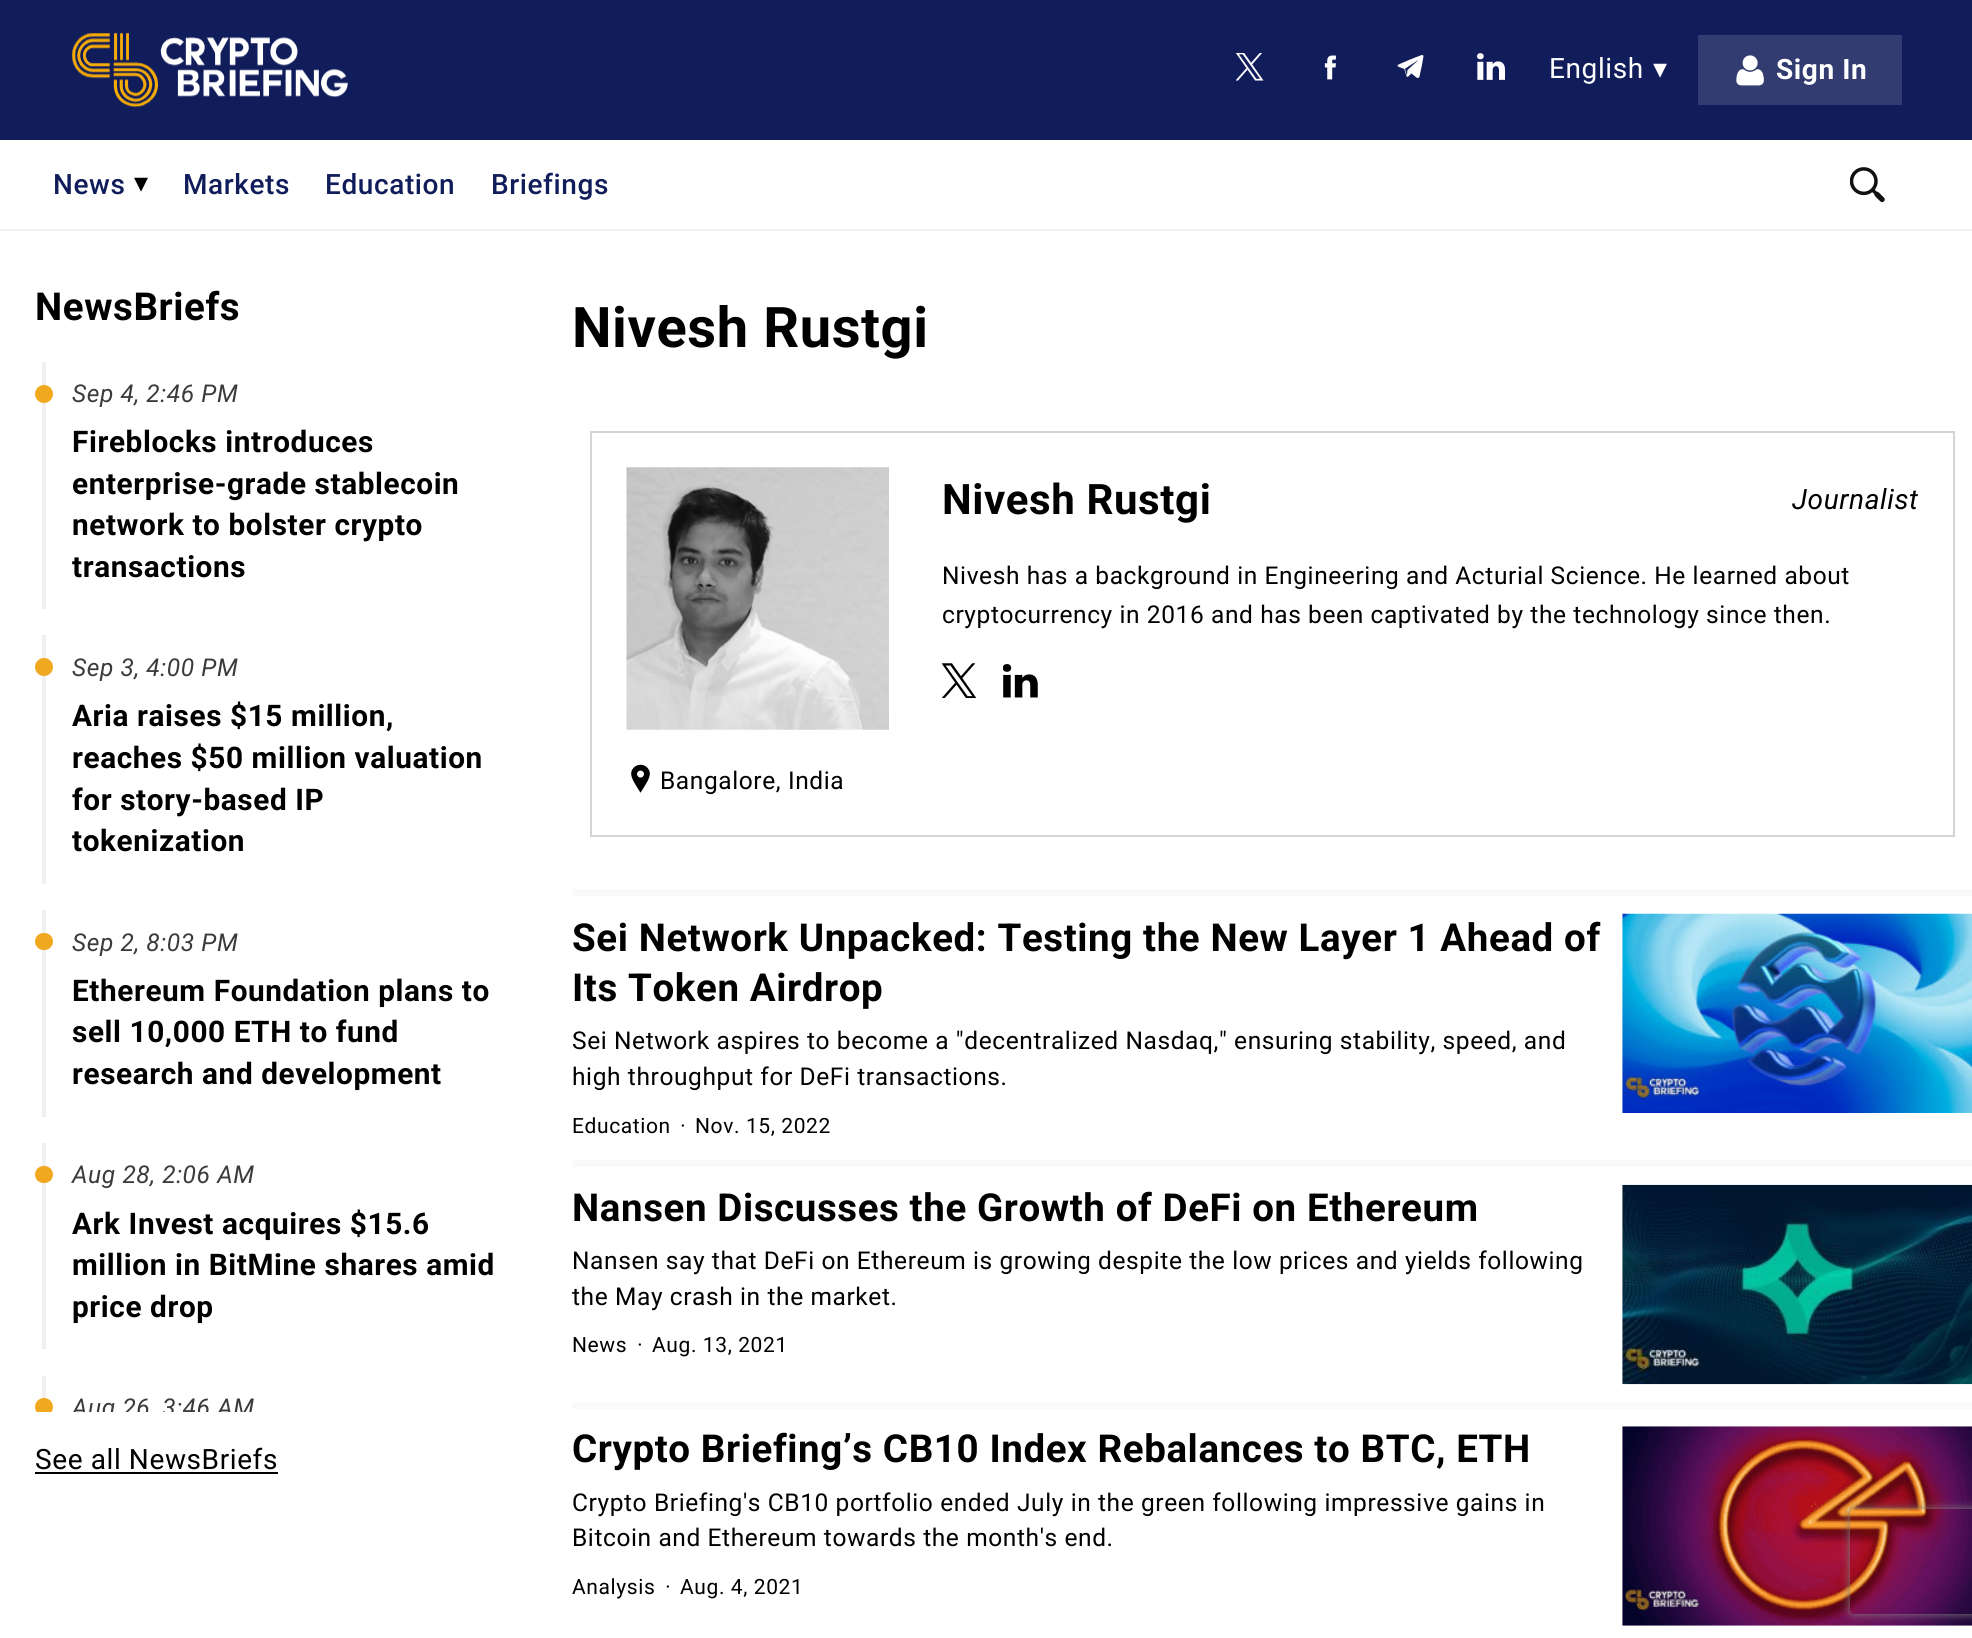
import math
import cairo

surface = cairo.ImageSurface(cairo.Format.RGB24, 1972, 1638)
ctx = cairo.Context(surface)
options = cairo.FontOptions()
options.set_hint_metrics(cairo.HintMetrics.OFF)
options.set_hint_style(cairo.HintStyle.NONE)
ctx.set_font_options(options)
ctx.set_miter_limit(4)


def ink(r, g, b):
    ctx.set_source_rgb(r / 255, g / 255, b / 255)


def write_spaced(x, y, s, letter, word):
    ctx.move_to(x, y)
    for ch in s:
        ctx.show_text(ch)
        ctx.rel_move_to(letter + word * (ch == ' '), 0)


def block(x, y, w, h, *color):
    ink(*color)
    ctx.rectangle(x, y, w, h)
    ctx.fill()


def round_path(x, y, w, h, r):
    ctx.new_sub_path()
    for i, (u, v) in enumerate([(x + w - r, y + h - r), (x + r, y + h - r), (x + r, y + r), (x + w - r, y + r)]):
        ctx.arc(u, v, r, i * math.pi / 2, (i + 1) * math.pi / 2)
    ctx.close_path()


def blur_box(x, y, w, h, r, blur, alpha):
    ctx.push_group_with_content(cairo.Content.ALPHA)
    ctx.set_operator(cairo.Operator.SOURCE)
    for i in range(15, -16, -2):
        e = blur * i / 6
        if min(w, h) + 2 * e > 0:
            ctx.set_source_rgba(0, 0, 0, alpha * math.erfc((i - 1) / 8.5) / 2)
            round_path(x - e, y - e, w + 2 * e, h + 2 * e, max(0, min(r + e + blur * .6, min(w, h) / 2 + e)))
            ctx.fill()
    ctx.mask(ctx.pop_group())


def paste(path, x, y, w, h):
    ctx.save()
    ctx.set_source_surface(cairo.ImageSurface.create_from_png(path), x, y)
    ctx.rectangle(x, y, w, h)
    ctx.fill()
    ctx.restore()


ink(255, 255, 255)
ctx.paint()
block(0, 0, 1972, 140, 17, 29, 91)
paste("pic1.png", 72, 33, 276, 75)
paste("pic2.png", 1236, 53, 28, 28)
paste("pic3.png", 1324, 55, 12, 25)
paste("pic4.png", 1397, 55, 27, 23)
paste("pic5.png", 1477, 53, 28, 27)
ctx.select_font_face("Roboto")
ctx.set_font_size(28)
ink(255, 255, 255)
write_spaced(1549, 78, "English", 0.6, 0)
ctx.select_font_face("DejaVu Sans")
write_spaced(1653, 78, "▾", 0.6, 0)
block(1698, 35, 204, 70, 50, 60, 113)
paste("pic6.png", 1736, 55, 28, 31)
ctx.select_font_face("Roboto", cairo.FontSlant.NORMAL, cairo.FontWeight.BOLD)
ink(255, 255, 255)
write_spaced(1776, 79, "Sign In", 0.6, 0)
block(0, 229, 1972, 2, 240, 240, 240)
ctx.select_font_face("Roboto Medium")
ink(17, 29, 91)
write_spaced(53, 194, "News", 0.6, 0)
ctx.select_font_face("DejaVu Sans")
ink(0, 0, 0)
write_spaced(134, 192, "▾", 0.6, 0)
ctx.select_font_face("Roboto Medium")
ink(17, 29, 91)
write_spaced(183, 194, "Markets", 0.6, 0)
write_spaced(325, 194, "Education", 0.6, 0)
write_spaced(491, 194, "Briefings", 0.6, 0)
paste("pic7.png", 1850, 167, 35, 36)
ctx.select_font_face("Roboto", cairo.FontSlant.NORMAL, cairo.FontWeight.BOLD)
ctx.set_font_size(38.5)
ink(0, 0, 0)
write_spaced(35, 320, "NewsBriefs", 0.6, 0)
block(42, 362, 4, 247, 240, 240, 240)
ink(240, 168, 31)
ctx.new_path()
ctx.arc(44, 394, 9, 0, 2 * math.pi)
ctx.fill()
ctx.select_font_face("Roboto", cairo.FontSlant.ITALIC)
ctx.set_font_size(24.5)
ink(59, 59, 59)
write_spaced(72, 402, "Sep 4, 2:46 PM", 0.6, 0)
ctx.select_font_face("Roboto", cairo.FontSlant.NORMAL, cairo.FontWeight.BOLD)
ctx.set_font_size(29.75)
ink(0, 0, 0)
write_spaced(72, 452, "Fireblocks introduces", 0.6, 0)
write_spaced(72, 494, "enterprise-grade stablecoin", 0.6, 0)
write_spaced(72, 535, "network to bolster crypto", 0.6, 0)
write_spaced(72, 577, "transactions", 0.6, 0)
block(42, 635, 4, 249, 240, 240, 240)
ink(240, 168, 31)
ctx.new_path()
ctx.arc(44, 667, 9, 0, 2 * math.pi)
ctx.fill()
ctx.select_font_face("Roboto", cairo.FontSlant.ITALIC)
ctx.set_font_size(24.5)
ink(59, 59, 59)
write_spaced(72, 676, "Sep 3, 4:00 PM", 0.6, 0)
ctx.select_font_face("Roboto", cairo.FontSlant.NORMAL, cairo.FontWeight.BOLD)
ctx.set_font_size(29.75)
ink(0, 0, 0)
write_spaced(72, 726, "Aria raises $15 million,", 0.6, 0)
write_spaced(72, 768, "reaches $50 million valuation", 0.6, 0)
write_spaced(72, 810, "for story-based IP", 0.6, 0)
write_spaced(72, 851, "tokenization", 0.6, 0)
block(42, 910, 4, 207, 240, 240, 240)
ink(240, 168, 31)
round_path(35, 933, 18, 17, 8.5)
ctx.fill()
ctx.select_font_face("Roboto", cairo.FontSlant.ITALIC)
ctx.set_font_size(24.5)
ink(59, 59, 59)
write_spaced(72, 951, "Sep 2, 8:03 PM", 0.6, 0)
ctx.select_font_face("Roboto", cairo.FontSlant.NORMAL, cairo.FontWeight.BOLD)
ctx.set_font_size(29.75)
ink(0, 0, 0)
write_spaced(72, 1001, "Ethereum Foundation plans to", 0.6, 0)
write_spaced(72, 1042, "sell 10,000 ETH to fund", 0.6, 0)
write_spaced(72, 1084, "research and development", 0.6, 0)
block(42, 1143, 4, 206, 240, 240, 240)
ink(240, 168, 31)
round_path(35, 1166, 18, 17, 8.5)
ctx.fill()
ctx.select_font_face("Roboto", cairo.FontSlant.ITALIC)
ctx.set_font_size(24.5)
ink(59, 59, 59)
write_spaced(72, 1183, "Aug 28, 2:06 AM", 0.6, 0)
ctx.select_font_face("Roboto", cairo.FontSlant.NORMAL, cairo.FontWeight.BOLD)
ctx.set_font_size(29.75)
ink(0, 0, 0)
write_spaced(72, 1234, "Ark Invest acquires $15.6", 0.6, 0)
write_spaced(72, 1275, "million in BitMine shares amid", 0.6, 0)
write_spaced(72, 1317, "price drop", 0.6, 0)
block(42, 1376, 4, 23, 240, 240, 240)
ctx.save()
ctx.rectangle(35, 362, 467, 1050)
ctx.clip()
ink(240, 168, 31)
ctx.arc(44, 1407, 9, 0, 2 * math.pi)
ctx.fill()
ctx.select_font_face("Roboto", cairo.FontSlant.ITALIC)
ctx.set_font_size(24.5)
ink(59, 59, 59)
write_spaced(72, 1416, "Aug 26, 3:46 AM", 0.6, 0)
ctx.restore()
ctx.select_font_face("Roboto")
ctx.set_font_size(28)
ink(0, 0, 0)
write_spaced(35, 1469, "See all NewsBriefs", 0.6, 0)
block(35, 1472, 243, 2, 0, 0, 0)
ctx.select_font_face("Roboto", cairo.FontSlant.NORMAL, cairo.FontWeight.BOLD)
ctx.set_font_size(56)
write_spaced(572, 347, "Nivesh Rustgi", 0.6, 0)
ctx.rectangle(591, 432, 1363, 404)
ink(212, 212, 212)
ctx.stroke()
ctx.set_font_size(42)
ink(0, 0, 0)
write_spaced(942, 514, "Nivesh Rustgi", 0.6, 0)
ctx.select_font_face("Roboto", cairo.FontSlant.ITALIC)
ctx.set_font_size(28)
write_spaced(1792, 509, "Journalist", 0.6, 0)
ctx.select_font_face("Roboto")
ctx.set_font_size(24.5)
write_spaced(942, 584, "Nivesh has a background in Engineering and Acturial Science. He learned about", 0.6, 0)
write_spaced(942, 623, "cryptocurrency in 2016 and has been captivated by the technology since then.", 0.6, 0)
paste("pic8.png", 942, 663, 35, 35)
paste("pic9.png", 1003, 664, 35, 34)
paste("pic10.png", 626, 467, 263, 263)
paste("pic11.png", 631, 764, 19, 29)
write_spaced(660, 789, "Bangalore, India", 0.6, 0)
block(572, 889, 1400, 7, 250, 250, 250)
ctx.select_font_face("Roboto", cairo.FontSlant.NORMAL, cairo.FontWeight.BOLD)
ctx.set_font_size(38.5)
ink(0, 0, 0)
write_spaced(572, 951, "Sei Network Unpacked: Testing the New Layer 1 Ahead of", 0.6, 0)
write_spaced(572, 1001, "Its Token Airdrop", 0.6, 0)
paste("pic12.png", 1622, 913, 350, 200)
ctx.select_font_face("Roboto")
ctx.set_font_size(24.5)
write_spaced(572, 1049, "Sei Network aspires to become a \"decentralized Nasdaq,\" ensuring stability, speed, and", 0.6, 0)
write_spaced(572, 1085, "high throughput for DeFi transactions.", 0.6, 0)
ctx.set_font_size(21)
write_spaced(572, 1133, "Education", 0.6, 0)
ctx.select_font_face("Roboto", cairo.FontSlant.ITALIC)
write_spaced(680, 1133, "·", 0.6, 0)
ctx.select_font_face("Roboto")
write_spaced(695, 1133, "Nov. 15, 2022", 0.6, 0)
block(572, 1160, 1400, 7, 250, 250, 250)
ctx.select_font_face("Roboto", cairo.FontSlant.NORMAL, cairo.FontWeight.BOLD)
ctx.set_font_size(38.5)
ink(0, 0, 0)
write_spaced(572, 1221, "Nansen Discusses the Growth of DeFi on Ethereum", 0.6, 0)
paste("pic13.png", 1622, 1184, 350, 201)
ctx.select_font_face("Roboto")
ctx.set_font_size(24.5)
write_spaced(572, 1269, "Nansen say that DeFi on Ethereum is growing despite the low prices and yields following", 0.6, 0)
write_spaced(572, 1305, "the May crash in the market.", 0.6, 0)
ctx.set_font_size(21)
write_spaced(572, 1352, "News", 0.6, 0)
ctx.select_font_face("Roboto", cairo.FontSlant.ITALIC)
write_spaced(637, 1352, "·", 0.6, 0)
ctx.select_font_face("Roboto")
write_spaced(652, 1352, "Aug. 13, 2021", 0.6, 0)
block(572, 1402, 1400, 7, 250, 250, 250)
ctx.select_font_face("Roboto", cairo.FontSlant.NORMAL, cairo.FontWeight.BOLD)
ctx.set_font_size(38.5)
ink(0, 0, 0)
write_spaced(572, 1462, "Crypto Briefing’s CB10 Index Rebalances to BTC, ETH", 0.6, 0)
paste("pic14.png", 1622, 1426, 350, 200)
ctx.select_font_face("Roboto")
ctx.set_font_size(24.5)
write_spaced(572, 1511, "Crypto Briefing's CB10 portfolio ended July in the green following impressive gains in", 0.6, 0)
write_spaced(572, 1546, "Bitcoin and Ethereum towards the month's end.", 0.6, 0)
ctx.set_font_size(21)
write_spaced(572, 1594, "Analysis", 0.6, 0)
ctx.select_font_face("Roboto", cairo.FontSlant.ITALIC)
write_spaced(665, 1594, "·", 0.6, 0)
ctx.select_font_face("Roboto")
write_spaced(680, 1594, "Aug. 4, 2021", 0.6, 0)
ctx.save()
ctx.set_fill_rule(cairo.FillRule.EVEN_ODD)
ctx.new_path()
ctx.move_to(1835, 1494)
ctx.line_to(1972, 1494)
ctx.line_to(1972, 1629)
ctx.line_to(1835, 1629)
ctx.close_path()
ctx.move_to(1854, 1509)
ctx.line_to(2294, 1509)
ctx.curve_to(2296, 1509, 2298, 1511, 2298, 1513)
ctx.line_to(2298, 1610)
ctx.curve_to(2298, 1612, 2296, 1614, 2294, 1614)
ctx.line_to(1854, 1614)
ctx.curve_to(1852, 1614, 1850, 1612, 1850, 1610)
ctx.line_to(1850, 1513)
ctx.curve_to(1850, 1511, 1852, 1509, 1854, 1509)
ctx.close_path()
ctx.clip()
ink(128, 128, 128)
blur_box(1850, 1509, 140, 105, 4, 4.5, 1)
ctx.restore()
surface.write_to_png("screenshot.png")
